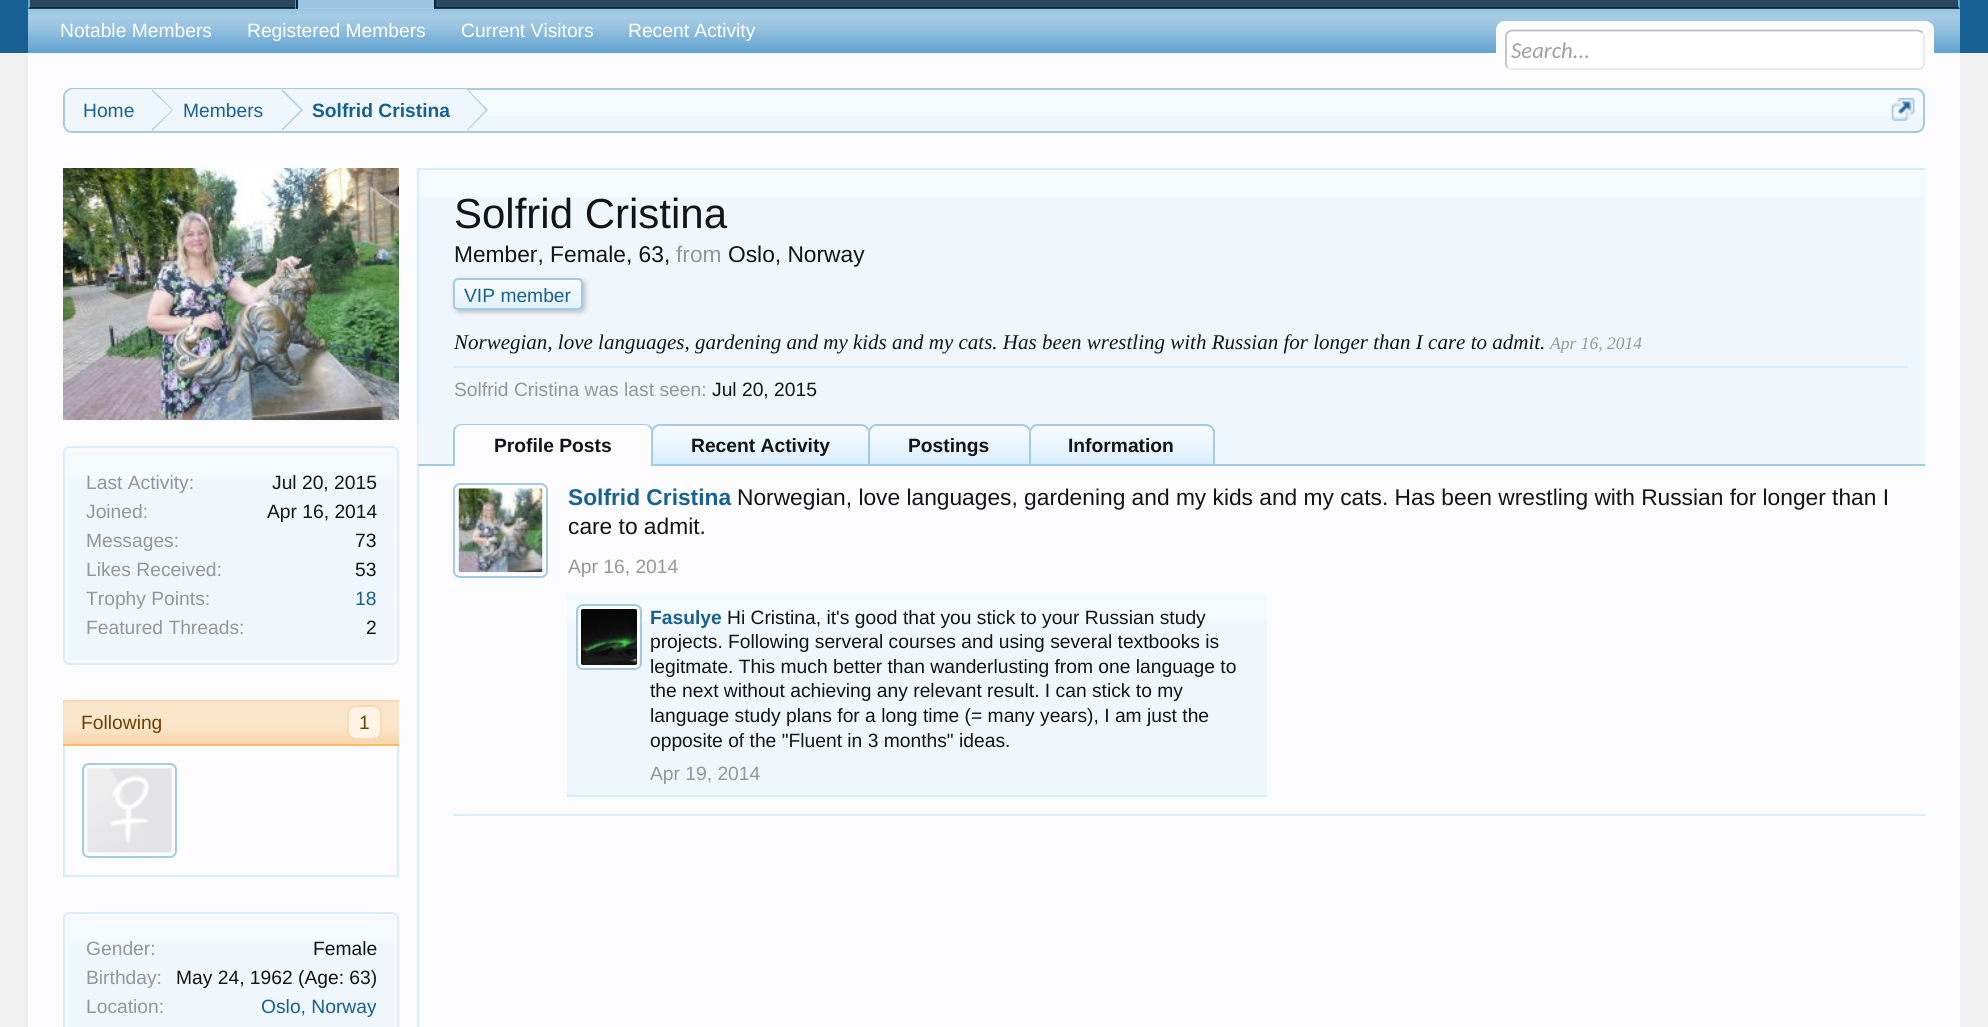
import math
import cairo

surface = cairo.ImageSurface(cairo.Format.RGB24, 1988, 1027)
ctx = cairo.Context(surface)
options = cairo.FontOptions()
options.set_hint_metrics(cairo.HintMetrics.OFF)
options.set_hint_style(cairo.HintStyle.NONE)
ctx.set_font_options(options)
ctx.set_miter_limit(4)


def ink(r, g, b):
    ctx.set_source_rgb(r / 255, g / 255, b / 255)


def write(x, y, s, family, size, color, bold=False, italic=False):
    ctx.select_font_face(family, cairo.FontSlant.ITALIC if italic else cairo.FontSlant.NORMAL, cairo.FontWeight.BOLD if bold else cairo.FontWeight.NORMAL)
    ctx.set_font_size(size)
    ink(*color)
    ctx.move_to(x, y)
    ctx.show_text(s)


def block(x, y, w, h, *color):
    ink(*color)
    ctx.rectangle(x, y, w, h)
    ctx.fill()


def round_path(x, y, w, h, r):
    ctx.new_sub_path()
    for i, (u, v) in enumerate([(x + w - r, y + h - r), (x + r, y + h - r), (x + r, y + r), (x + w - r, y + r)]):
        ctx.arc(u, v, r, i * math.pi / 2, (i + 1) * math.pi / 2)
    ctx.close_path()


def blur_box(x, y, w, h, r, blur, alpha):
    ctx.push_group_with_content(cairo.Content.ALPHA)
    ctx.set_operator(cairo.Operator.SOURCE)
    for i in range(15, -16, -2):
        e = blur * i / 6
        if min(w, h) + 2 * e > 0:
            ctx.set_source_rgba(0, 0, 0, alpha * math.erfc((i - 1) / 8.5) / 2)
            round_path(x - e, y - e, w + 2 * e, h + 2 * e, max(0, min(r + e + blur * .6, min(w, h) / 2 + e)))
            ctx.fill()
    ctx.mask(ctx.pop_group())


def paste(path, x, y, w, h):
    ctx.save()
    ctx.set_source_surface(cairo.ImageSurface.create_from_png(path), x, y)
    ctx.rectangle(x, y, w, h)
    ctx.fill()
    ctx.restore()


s1 = dict(family="Liberation Sans", size=19.25, color=(255, 255, 255))
s2 = dict(family="Carlito", size=22.75, color=(160, 160, 160), italic=True)
s3 = dict(family="Liberation Sans", size=19.25, color=(23, 96, 147))
s4 = dict(family="Liberation Sans", size=19.25, color=(23, 96, 147), bold=True)
s5 = dict(family="Liberation Sans", size=19.25, color=(150, 150, 150))
s6 = dict(family="Liberation Sans", size=19.25, color=(20, 20, 20))
s7 = dict(family="Liberation Sans", size=19.25, color=(109, 63, 3))
s8 = dict(family="Liberation Sans", size=42, color=(20, 20, 20))
s9 = dict(family="Liberation Sans", size=22.75, color=(20, 20, 20))
s10 = dict(family="Liberation Sans", size=22.75, color=(150, 150, 150))
s11 = dict(family="Liberation Serif", size=21, color=(20, 20, 20), italic=True)
s12 = dict(family="Liberation Serif", size=17.5, color=(150, 150, 150), italic=True)
s13 = dict(family="Liberation Sans", size=19.25, color=(20, 20, 20), bold=True)
s14 = dict(family="Liberation Sans", size=22.75, color=(23, 96, 147), bold=True)

ink(240, 240, 240)
ctx.paint()
block(0, 0, 1988, 53, 23, 96, 147)
block(28, 0, 1932, 9, 43, 72, 92)
ink(101, 165, 209)
ctx.new_path()
ctx.move_to(1955, -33)
ctx.curve_to(1958, -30, 1960, -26, 1960, -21)
ctx.line_to(1960, 9)
ctx.line_to(1958, 7)
ctx.line_to(1958, -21)
ctx.curve_to(1958, -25, 1956, -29, 1954, -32)
ctx.close_path()
ctx.fill()
ink(3, 42, 70)
ctx.new_path()
ctx.move_to(1960, 9)
ctx.line_to(28, 9)
ctx.line_to(30, 7)
ctx.line_to(1958, 7)
ctx.close_path()
ctx.fill()
ink(101, 165, 209)
ctx.new_path()
ctx.move_to(28, 9)
ctx.line_to(30, 7)
ctx.line_to(30, -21)
ctx.curve_to(30, -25, 32, -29, 34, -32)
ctx.line_to(33, -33)
ctx.curve_to(30, -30, 28, -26, 28, -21)
ctx.close_path()
ctx.fill()
block(298, 0, 136, 9, 101, 165, 209)
ctx.set_source_rgba(1, 1, 1, 0.36)
ctx.rectangle(295, 0, 139, 9)
ctx.fill()
block(434, 0, 2, 9, 3, 42, 70)
block(296, 0, 2, 9, 3, 42, 70)
block(28, 9, 1932, 44, 101, 165, 209)
paste("pic1.png", 28, 8, 1932, 42)
write(60, 37, "Notable Members", **s1)
write(247, 37, "Registered Members", **s1)
write(461, 37, "Current Visitors", **s1)
write(628, 37, "Recent Activity", **s1)
block(28, 53, 1932, 974, 252, 252, 255)
round_path(1496, 21, 438, 49, 9)
ctx.fill()
ink(255, 255, 255)
round_path(1505, 30, 420, 40, 7)
ctx.fill()
ctx.new_path()
ctx.move_to(1922.5, 32.5)
ctx.curve_to(1923.5, 33.5, 1924, 35, 1924, 37)
ctx.line_to(1924, 63)
ctx.curve_to(1924, 64.5, 1923.5, 66, 1922.5, 67.5)
ctx.curve_to(1921, 68.5, 1919.5, 69, 1918, 69)
ctx.line_to(1512, 69)
ctx.curve_to(1510.5, 69, 1509, 68.5, 1507.5, 67.5)
ink(233, 233, 233)
ctx.set_line_width(1.8)
ctx.stroke()
ctx.new_path()
ctx.move_to(1507.5, 67.5)
ctx.curve_to(1506.5, 66, 1506, 64.5, 1506, 63)
ctx.line_to(1506, 37)
ctx.curve_to(1506, 35, 1506.5, 33.5, 1507.5, 32.5)
ctx.curve_to(1509, 31.5, 1510.5, 30.5, 1512, 30.5)
ctx.line_to(1918, 30.5)
ctx.curve_to(1919.5, 30.5, 1921, 31.5, 1922.5, 32.5)
ink(192, 192, 192)
ctx.stroke()
write(1511, 58, "Search...", **s2)
ink(240, 247, 252)
round_path(63, 88, 1862, 45, 9)
ctx.fill()
paste("pic2.png", 63, 90, 1862, 26)
round_path(64, 89, 1860, 43, 8)
ink(165, 202, 228)
ctx.set_line_width(2)
ctx.stroke()
ctx.save()
round_path(65, 89, 1858, 42, 7)
ctx.clip()
ink(240, 247, 252)
ctx.new_path()
ctx.move_to(74, 89)
ctx.line_to(152, 89)
ctx.line_to(152, 133)
ctx.line_to(74, 133)
ctx.curve_to(69, 133, 65, 129, 65, 124)
ctx.line_to(65, 98)
ctx.curve_to(65, 93, 69, 89, 74, 89)
ctx.close_path()
ctx.fill()
ctx.restore()
write(83, 117, "Home", **s3)
block(152, 89, 315, 27, 240, 247, 252)
ink(165, 202, 228)
ctx.new_path()
ctx.move_to(152, 131)
ctx.line_to(152, 89)
ctx.line_to(173, 110)
ctx.close_path()
ctx.fill()
ink(240, 247, 252)
ctx.new_path()
ctx.move_to(150, 131)
ctx.line_to(150, 89)
ctx.line_to(172, 110)
ctx.close_path()
ctx.fill()
write(183, 117, "Members", **s3)
ink(165, 202, 228)
ctx.new_path()
ctx.move_to(282, 131)
ctx.line_to(282, 89)
ctx.line_to(303, 110)
ctx.close_path()
ctx.fill()
ink(240, 247, 252)
ctx.new_path()
ctx.move_to(280, 131)
ctx.line_to(280, 89)
ctx.line_to(301, 110)
ctx.close_path()
ctx.fill()
write(312, 117, "Solfrid Cristina", **s4)
ink(165, 202, 228)
ctx.new_path()
ctx.move_to(467, 131)
ctx.line_to(467, 89)
ctx.line_to(488, 110)
ctx.close_path()
ctx.fill()
ink(240, 247, 252)
ctx.new_path()
ctx.move_to(466, 131)
ctx.line_to(466, 89)
ctx.line_to(486, 110)
ctx.close_path()
ctx.fill()
paste("pic3.png", 1891, 98, 24, 23)
block(418, 168, 1507, 2, 215, 237, 252)
block(417, 168, 2, 859, 215, 237, 252)
paste("pic4.png", 63, 168, 336, 252)
round_path(64, 447, 334, 217, 6)
ctx.stroke()
block(68, 452, 326, 208, 240, 247, 252)
paste("pic5.png", 69, 452, 324, 27)
write(86, 489, "Last Activity:", **s5)
write(272, 489, "Jul 20, 2015", **s6)
write(86, 518, "Joined:", **s5)
write(267, 518, "Apr 16, 2014", **s6)
write(86, 547, "Messages:", **s5)
write(355, 547, "73", **s6)
write(86, 576, "Likes Received:", **s5)
write(355, 576, "53", **s6)
write(86, 605, "Trophy Points:", **s5)
write(355, 605, "18", **s3)
write(86, 634, "Featured Threads:", **s5)
write(366, 634, "2", **s6)
block(63, 700, 336, 44, 249, 217, 176)
paste("pic6.png", 63, 702, 336, 37)
block(63, 744, 336, 2, 249, 188, 109)
write(81, 729, "Following", **s7)
ink(255, 244, 229)
round_path(348, 706, 33, 33, 8)
ctx.fill_preserve()
ink(249, 217, 176)
ctx.stroke()
write(359, 729, "1", **s7)
block(397, 746, 2, 131, 215, 237, 252)
block(63, 875, 336, 2, 215, 237, 252)
block(63, 746, 2, 131, 215, 237, 252)
paste("pic7.png", 87, 768, 85, 85)
round_path(83, 764, 93, 93, 6)
ink(165, 202, 228)
ctx.stroke()
round_path(64, 913, 334, 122, 6)
ink(215, 237, 252)
ctx.stroke()
block(68, 917, 326, 110, 240, 247, 252)
paste("pic8.png", 69, 917, 324, 27)
write(86, 955, "Gender:", **s5)
write(313, 955, "Female", **s6)
write(86, 984, "Birthday:", **s5)
write(176, 984, "May 24, 1962 (Age: 63)", **s6)
write(86, 1013, "Location:", **s5)
ctx.save()
ctx.rectangle(86, 992, 290, 28)
ctx.clip()
write(261, 1013, "Oslo, Norway", **s3)
ctx.restore()
block(419, 170, 1506, 254, 240, 247, 252)
paste("pic9.png", 419, 170, 1506, 27)
write(454, 228, "Solfrid Cristina", **s8)
write(454, 262, "Member, Female, 63,", **s9)
write(676, 262, "from", **s10)
write(728, 262, "Oslo, Norway", **s9)
ink(0, 0, 0)
blur_box(455, 280, 130, 32, 5, 2.5, 0.25)
ink(215, 237, 252)
round_path(453, 278, 130, 32, 5)
ctx.fill()
paste("pic10.png", 453, 280, 130, 30)
round_path(454, 279, 128, 30, 4)
ink(165, 202, 228)
ctx.stroke()
write(464, 302, "VIP member", **s3)
write(454, 349, "Norwegian, love languages, gardening and my kids and my cats. Has been wrestling with Russian for longer than I care to admit.", **s11)
write(1550, 349, "Apr 16, 2014", **s12)
block(453, 366, 1455, 2, 215, 237, 252)
write(454, 396, "Solfrid Cristina was last seen:", **s5)
write(712, 396, "Jul 20, 2015", **s6)
block(418, 424, 1507, 40, 240, 247, 252)
block(418, 464, 1507, 2, 165, 202, 228)
ink(252, 252, 255)
ctx.new_path()
ctx.move_to(462, 424)
ctx.line_to(644, 424)
ctx.curve_to(649, 424, 653, 428, 653, 433)
ctx.line_to(653, 466)
ctx.line_to(453, 466)
ctx.line_to(453, 433)
ctx.curve_to(453, 428, 457, 424, 462, 424)
ctx.close_path()
ctx.fill()
paste("pic11.png", 455, 426, 196, 1)
ink(165, 202, 228)
ctx.set_fill_rule(cairo.FillRule.EVEN_ODD)
ctx.new_path()
ctx.move_to(462, 424)
ctx.line_to(644, 424)
ctx.curve_to(649, 424, 653, 427, 653, 432)
ctx.line_to(653, 466)
ctx.line_to(453, 466)
ctx.line_to(453, 432)
ctx.curve_to(453, 427, 457, 424, 462, 424)
ctx.close_path()
ctx.move_to(462, 425)
ctx.line_to(644, 425)
ctx.curve_to(648, 425, 651, 428, 651, 432)
ctx.line_to(651, 466)
ctx.line_to(455, 466)
ctx.line_to(455, 432)
ctx.curve_to(455, 428, 458, 425, 462, 425)
ctx.close_path()
ctx.fill()
write(494, 452, "Profile Posts", **s13)
ink(215, 237, 252)
ctx.new_path()
ctx.move_to(660, 424)
ctx.line_to(861, 424)
ctx.curve_to(866, 424, 870, 428, 870, 433)
ctx.line_to(870, 466)
ctx.line_to(651, 466)
ctx.line_to(651, 433)
ctx.curve_to(651, 428, 655, 424, 660, 424)
ctx.close_path()
ctx.fill()
paste("pic12.png", 651, 425, 219, 37)
ctx.new_path()
ctx.move_to(660, 425)
ctx.line_to(861, 425)
ctx.curve_to(865.5, 425, 869, 428.5, 869, 433)
ctx.line_to(869, 465)
ctx.line_to(652, 465)
ctx.line_to(652, 433)
ctx.curve_to(652, 428.5, 655.5, 425, 660, 425)
ctx.close_path()
ink(165, 202, 228)
ctx.stroke()
write(691, 452, "Recent Activity", **s13)
ink(215, 237, 252)
ctx.new_path()
ctx.move_to(877, 424)
ctx.line_to(1022, 424)
ctx.curve_to(1027, 424, 1031, 428, 1031, 433)
ctx.line_to(1031, 466)
ctx.line_to(868, 466)
ctx.line_to(868, 433)
ctx.curve_to(868, 428, 872, 424, 877, 424)
ctx.close_path()
ctx.fill()
paste("pic13.png", 868, 425, 163, 37)
ctx.new_path()
ctx.move_to(877, 425)
ctx.line_to(1022, 425)
ctx.curve_to(1026.5, 425, 1030, 428.5, 1030, 433)
ctx.line_to(1030, 465)
ctx.line_to(869, 465)
ctx.line_to(869, 433)
ctx.curve_to(869, 428.5, 872.5, 425, 877, 425)
ctx.close_path()
ink(165, 202, 228)
ctx.stroke()
write(908, 452, "Postings", **s13)
ink(215, 237, 252)
ctx.new_path()
ctx.move_to(1038, 424)
ctx.line_to(1206, 424)
ctx.curve_to(1211, 424, 1215, 428, 1215, 433)
ctx.line_to(1215, 466)
ctx.line_to(1029, 466)
ctx.line_to(1029, 433)
ctx.curve_to(1029, 428, 1033, 424, 1038, 424)
ctx.close_path()
ctx.fill()
paste("pic14.png", 1029, 425, 186, 37)
ctx.new_path()
ctx.move_to(1038, 425)
ctx.line_to(1206, 425)
ctx.curve_to(1210.5, 425, 1214, 428.5, 1214, 433)
ctx.line_to(1214, 465)
ctx.line_to(1030, 465)
ctx.line_to(1030, 433)
ctx.curve_to(1030, 428.5, 1033.5, 425, 1038, 425)
ctx.close_path()
ink(165, 202, 228)
ctx.stroke()
write(1068, 452, "Information", **s13)
block(453, 814, 1472, 2, 215, 237, 252)
round_path(454, 484, 93, 93, 6)
ink(165, 202, 228)
ctx.stroke()
paste("pic15.png", 458, 488, 85, 85)
write(568, 505, "Solfrid Cristina", **s14)
write(737, 505, "Norwegian, love languages, gardening and my kids and my cats. Has been wrestling with Russian for longer than I", **s9)
write(568, 534, "care to admit.", **s9)
write(568, 573, "Apr 16, 2014", **s5)
block(567, 595, 700, 200, 240, 247, 252)
paste("pic16.png", 567, 595, 700, 27)
block(567, 795, 700, 2, 215, 237, 252)
ink(252, 252, 255)
round_path(577, 605, 64, 64, 6)
ctx.fill_preserve()
ink(165, 202, 228)
ctx.stroke()
paste("pic17.png", 581, 609, 56, 56)
write(650, 624, "Fasulye", **s4)
write(727, 624, "Hi Cristina, it's good that you stick to your Russian study", **s6)
write(650, 648, "projects. Following serveral courses and using several textbooks is", **s6)
write(650, 673, "legitmate. This much better than wanderlusting from one language to", **s6)
write(650, 697, "the next without achieving any relevant result. I can stick to my", **s6)
write(650, 722, "language study plans for a long time (= many years), I am just the", **s6)
write(650, 747, "opposite of the \"Fluent in 3 months\" ideas.", **s6)
write(650, 780, "Apr 19, 2014", **s5)
surface.write_to_png("screenshot.png")
